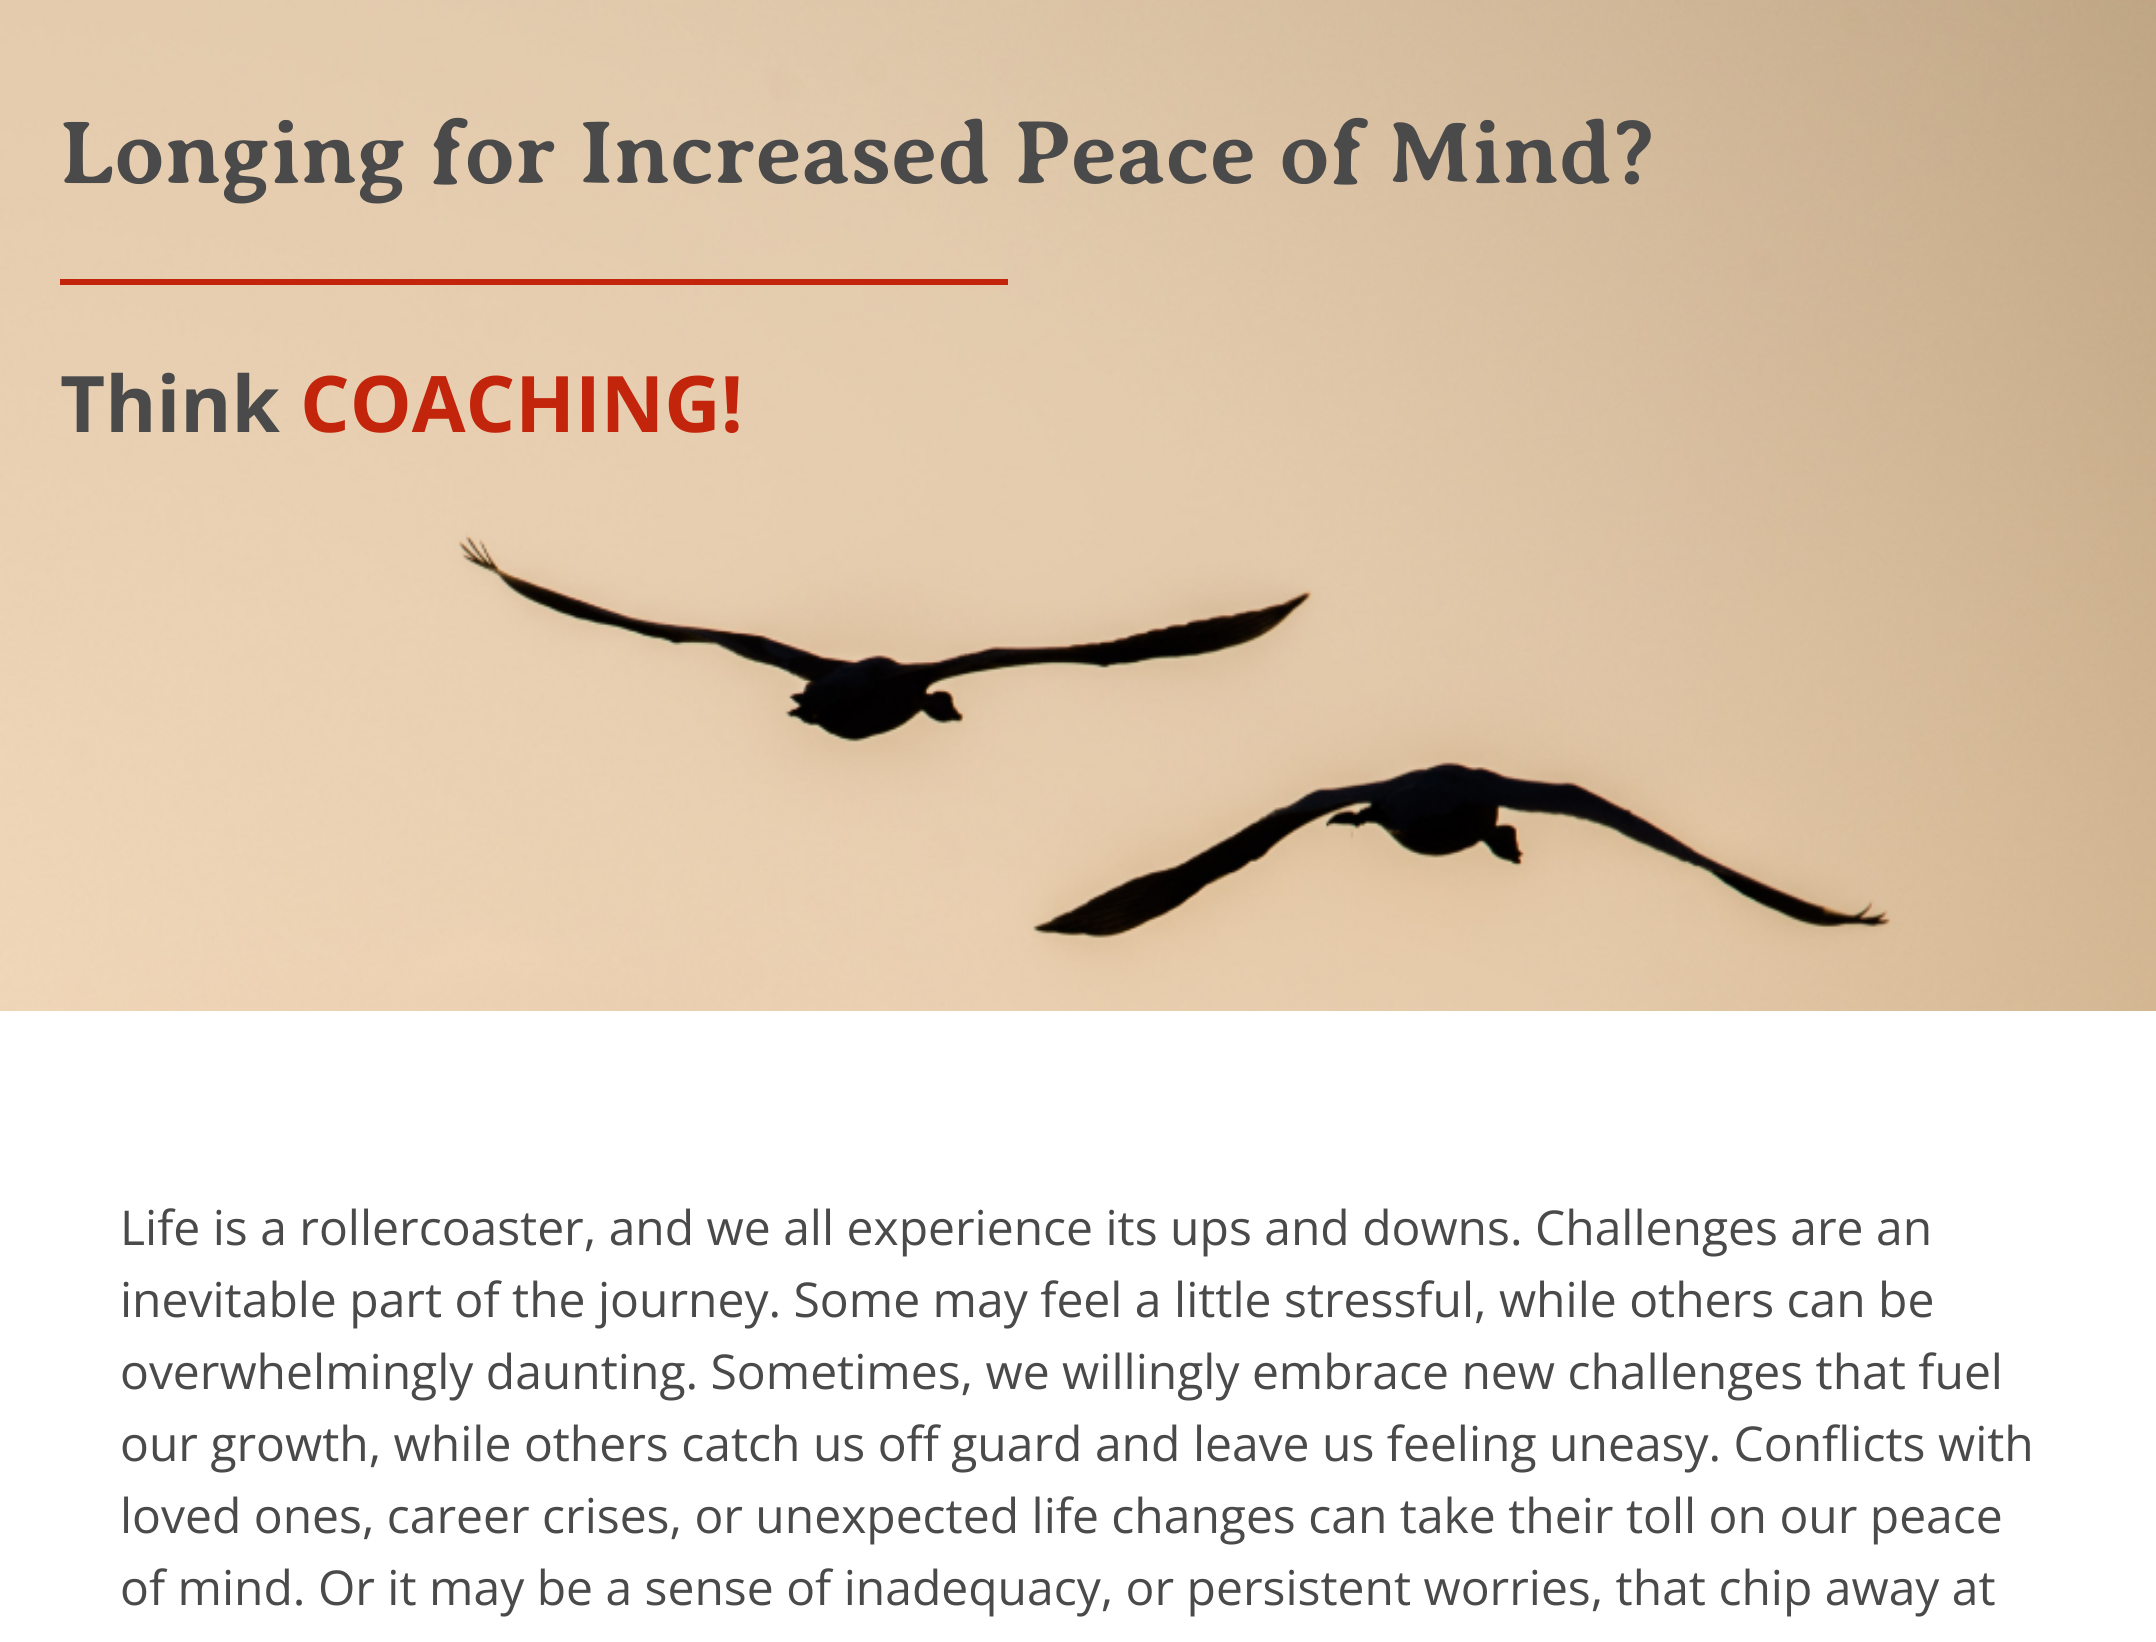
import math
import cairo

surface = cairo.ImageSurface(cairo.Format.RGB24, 2156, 1642)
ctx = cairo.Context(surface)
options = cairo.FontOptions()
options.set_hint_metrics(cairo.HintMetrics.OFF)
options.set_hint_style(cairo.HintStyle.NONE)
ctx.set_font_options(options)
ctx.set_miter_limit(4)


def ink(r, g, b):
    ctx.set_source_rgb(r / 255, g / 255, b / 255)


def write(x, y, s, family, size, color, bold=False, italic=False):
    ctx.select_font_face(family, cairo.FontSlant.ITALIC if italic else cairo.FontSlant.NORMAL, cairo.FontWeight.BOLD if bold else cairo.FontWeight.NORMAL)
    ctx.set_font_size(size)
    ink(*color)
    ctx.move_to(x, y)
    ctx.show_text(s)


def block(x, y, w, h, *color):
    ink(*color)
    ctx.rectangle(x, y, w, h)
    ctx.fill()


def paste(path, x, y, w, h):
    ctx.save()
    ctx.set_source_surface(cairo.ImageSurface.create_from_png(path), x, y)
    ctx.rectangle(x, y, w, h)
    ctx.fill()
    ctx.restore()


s1 = dict(family="Averia Serif Libre", size=90, color=(74, 74, 74), bold=True)
s2 = dict(family="Open Sans", size=78, color=(74, 74, 74), bold=True)
s3 = dict(family="Open Sans", size=78, color=(194, 37, 11), bold=True)
s4 = dict(family="Open Sans", size=48, color=(74, 74, 74))

ink(255, 255, 255)
ctx.paint()
paste("pic1.png", 0, 0, 2156, 1011)
write(60, 183, "Longing for Increased Peace of Mind?", **s1)
block(60, 279, 948, 6, 194, 37, 11)
write(60, 432, "Think", **s2)
write(300, 432, "COACHING!", **s3)
write(120, 1245, "Life is a rollercoaster, and we all experience its ups and downs. Challenges are an", **s4)
write(120, 1317, "inevitable part of the journey. Some may feel a little stressful, while others can be", **s4)
write(120, 1389, "overwhelmingly daunting. Sometimes, we willingly embrace new challenges that fuel", **s4)
write(120, 1461, "our growth, while others catch us off guard and leave us feeling uneasy. Conflicts with", **s4)
write(120, 1533, "loved ones, career crises, or unexpected life changes can take their toll on our peace", **s4)
write(120, 1605, "of mind. Or it may be a sense of inadequacy, or persistent worries, that chip away at", **s4)
surface.write_to_png("screenshot.png")
